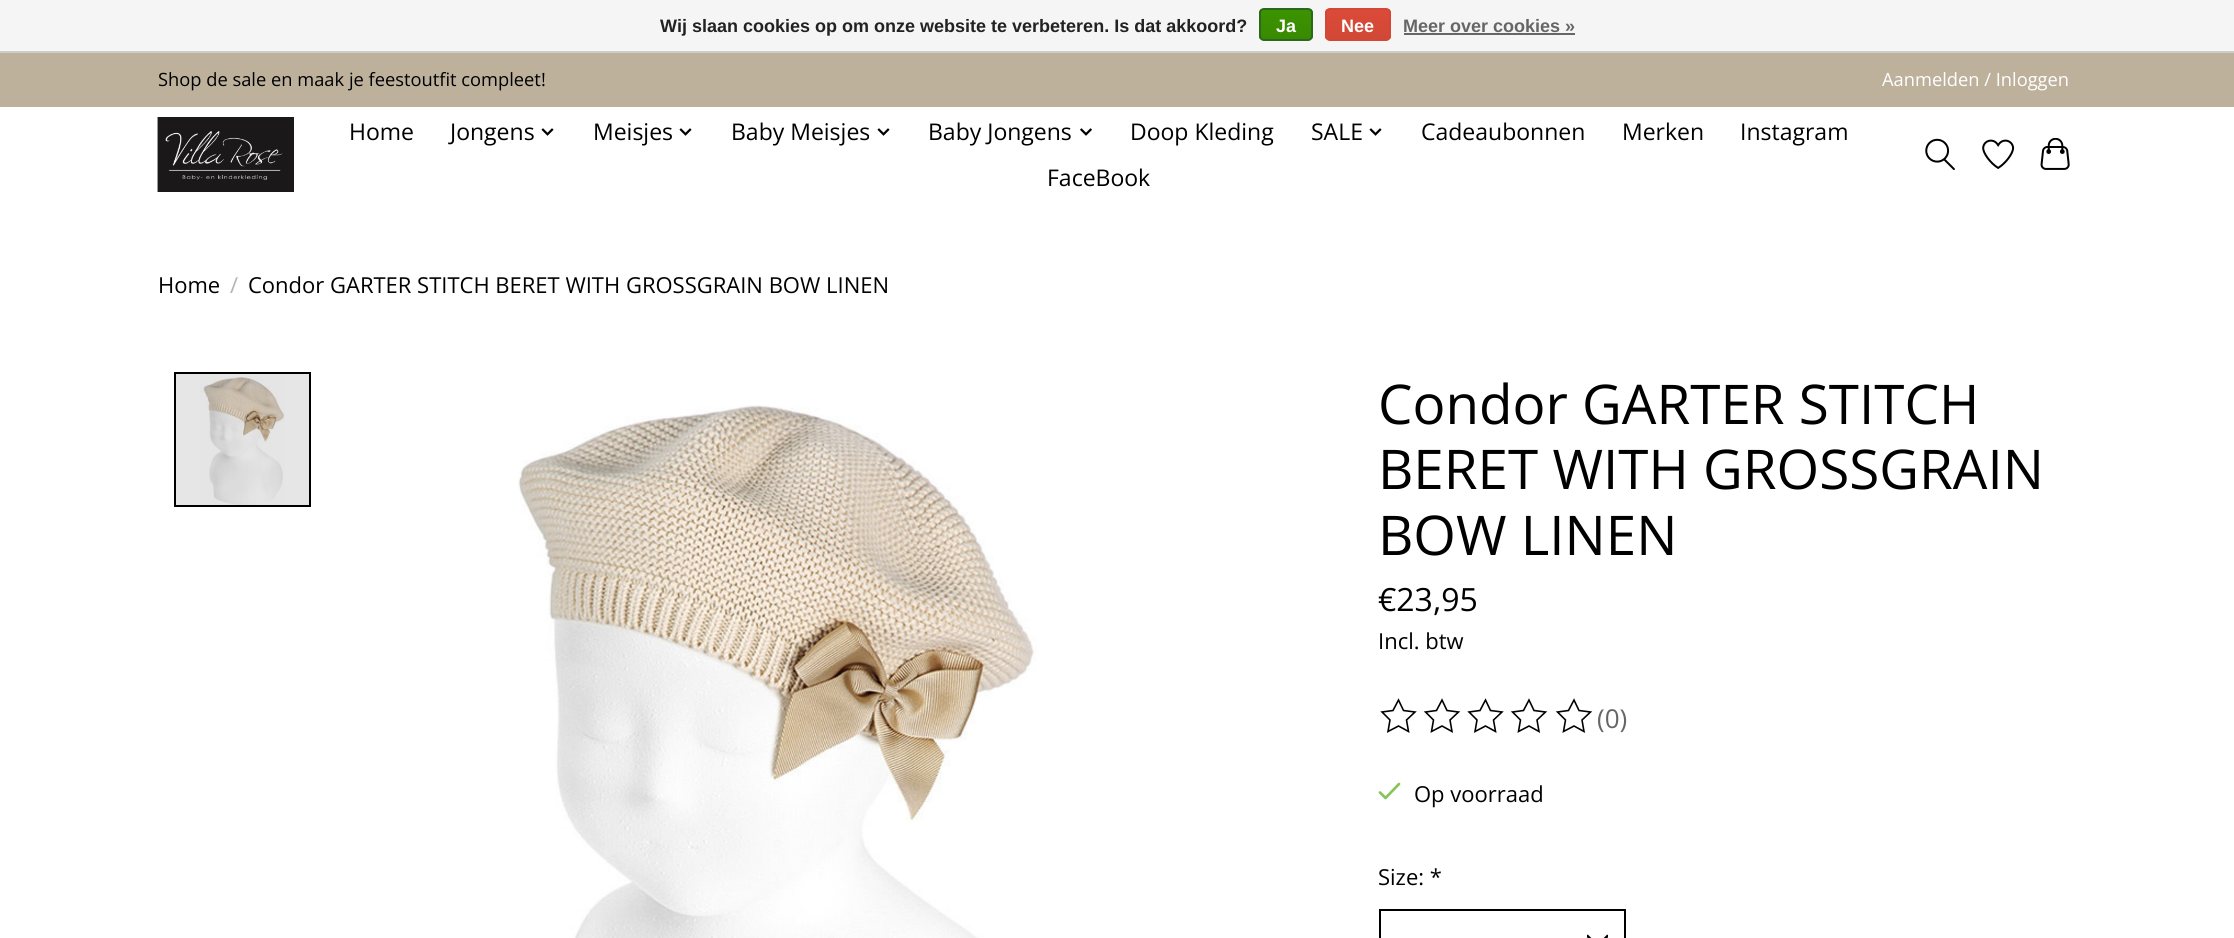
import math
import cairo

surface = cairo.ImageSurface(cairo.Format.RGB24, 2234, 938)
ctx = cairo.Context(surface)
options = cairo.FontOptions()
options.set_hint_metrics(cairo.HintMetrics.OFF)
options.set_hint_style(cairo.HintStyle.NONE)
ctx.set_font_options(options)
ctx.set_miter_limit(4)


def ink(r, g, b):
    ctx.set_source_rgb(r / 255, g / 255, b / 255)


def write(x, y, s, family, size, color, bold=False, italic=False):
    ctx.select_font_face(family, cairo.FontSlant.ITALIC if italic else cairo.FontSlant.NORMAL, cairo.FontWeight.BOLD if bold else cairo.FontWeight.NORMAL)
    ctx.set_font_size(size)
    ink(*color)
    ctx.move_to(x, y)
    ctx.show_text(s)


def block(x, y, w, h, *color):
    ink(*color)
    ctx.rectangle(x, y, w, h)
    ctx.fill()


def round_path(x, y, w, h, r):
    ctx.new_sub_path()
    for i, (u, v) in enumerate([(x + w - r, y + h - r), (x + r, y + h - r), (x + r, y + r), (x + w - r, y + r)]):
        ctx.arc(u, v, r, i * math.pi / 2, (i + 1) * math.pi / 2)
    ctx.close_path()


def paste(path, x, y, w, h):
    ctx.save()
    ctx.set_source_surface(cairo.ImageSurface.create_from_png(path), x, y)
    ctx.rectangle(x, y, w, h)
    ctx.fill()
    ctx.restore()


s1 = dict(family="Liberation Sans", size=18, color=(34, 34, 34), bold=True)
s2 = dict(family="Liberation Sans", size=18, color=(255, 255, 255), bold=True)
s3 = dict(family="Liberation Sans", size=18, color=(102, 102, 102), bold=True)
s4 = dict(family="Open Sans", size=18.3, color=(0, 0, 0))
s5 = dict(family="Open Sans", size=18.3, color=(255, 255, 255))
s6 = dict(family="Open Sans", size=23, color=(0, 0, 0))
s7 = dict(family="Open Sans", size=22, color=(0, 0, 0))
s8 = dict(family="Open Sans", size=22, color=(179, 179, 179))
s9 = dict(family="Open Sans", size=54.75, color=(0, 0, 0))
s10 = dict(family="Open Sans", size=32, color=(0, 0, 0))
s11 = dict(family="Open Sans", size=26, color=(102, 102, 102))

ink(255, 255, 255)
ctx.paint()
block(176, 374, 133, 131, 230, 230, 230)
block(0, 0, 2234, 51, 245, 245, 245)
block(0, 51, 2234, 2, 204, 204, 204)
write(660, 32, "Wij slaan cookies op om onze website te verbeteren. Is dat akkoord?", **s1)
ctx.save()
round_path(1259, 8, 54, 33, 5)
ctx.clip()
gradient = cairo.LinearGradient(1286, 9, 1286, 39)
gradient.add_color_stop_rgba(0, 0.235, 0.576, 0, 1)
gradient.add_color_stop_rgba(1, 0.224, 0.541, 0, 1)
ctx.set_source(gradient)
ctx.rectangle(1259, 9, 54, 30)
ctx.fill()
ctx.restore()
round_path(1260, 9, 52, 31, 4)
ink(41, 105, 29)
ctx.stroke()
write(1276, 32, "Ja", **s2)
ctx.save()
round_path(1325, 8, 66, 33, 5)
ctx.clip()
gradient = cairo.LinearGradient(1358, 9, 1358, 39)
gradient.add_color_stop_rgba(0, 0.863, 0.29, 0.22, 1)
gradient.add_color_stop_rgba(1, 0.82, 0.282, 0.212, 1)
ctx.set_source(gradient)
ctx.rectangle(1325, 9, 66, 30)
ctx.fill()
ctx.restore()
round_path(1326, 9, 64, 31, 4)
ink(209, 72, 54)
ctx.stroke()
write(1341, 32, "Nee", **s2)
write(1403, 32, "Meer over cookies »", **s3)
block(1404, 33, 171, 2, 102, 102, 102)
block(0, 53, 2234, 54, 189, 177, 156)
write(158, 86, "Shop de sale en maak je feestoutfit compleet!", **s4)
write(1882, 86, "Aanmelden / Inloggen", **s5)
paste("pic1.png", 157, 117, 137, 75)
write(349, 140, "Home", **s6)
write(450, 140, "Jongens", **s6)
paste("pic2.png", 541, 128, 13, 8)
write(593, 140, "Meisjes", **s6)
paste("pic2.png", 679, 128, 13, 8)
write(731, 140, "Baby Meisjes", **s6)
paste("pic2.png", 877, 128, 13, 8)
write(928, 140, "Baby Jongens", **s6)
paste("pic3.png", 1080, 128, 12, 8)
write(1130, 140, "Doop Kleding", **s6)
write(1311, 140, "SALE", **s6)
paste("pic2.png", 1369, 128, 13, 8)
write(1421, 140, "Cadeaubonnen", **s6)
write(1622, 140, "Merken", **s6)
write(1740, 140, "Instagram", **s6)
write(1047, 186, "FaceBook", **s6)
paste("pic4.png", 1925, 138, 30, 32)
paste("pic5.png", 1982, 139, 33, 30)
paste("pic6.png", 2040, 138, 30, 32)
write(158, 293, "Home", **s7)
write(230, 293, "/", **s8)
write(248, 293, "Condor GARTER STITCH BERET WITH GROSSGRAIN BOW", **s7)
write(826, 293, "LINEN", **s7)
paste("pic7.png", 200, 376, 85, 129)
ctx.rectangle(175, 373, 135, 133)
ctx.stroke()
paste("pic8.png", 518, 405, 519, 533)
write(1378, 424, "Condor GARTER STITCH", **s9)
write(1378, 489, "BERET WITH GROSSGRAIN", **s9)
write(1378, 555, "BOW LINEN", **s9)
write(1378, 611, "€23,95", **s10)
write(1378, 649, "Incl. btw", **s7)
ctx.new_path()
ctx.move_to(1398.5, 700)
ctx.line_to(1403.5, 710.5)
ctx.line_to(1415, 712)
ctx.line_to(1406.5, 720)
ctx.line_to(1408.5, 731.5)
ctx.line_to(1398.5, 726)
ctx.line_to(1388, 731.5)
ctx.line_to(1390, 720)
ctx.line_to(1382, 712)
ctx.line_to(1393, 710.5)
ctx.close_path()
ctx.set_line_width(1.6)
ctx.stroke()
ctx.new_path()
ctx.move_to(1442, 700)
ctx.line_to(1447, 710.5)
ctx.line_to(1458.5, 712)
ctx.line_to(1450, 720)
ctx.line_to(1452, 731.5)
ctx.line_to(1442, 726)
ctx.line_to(1431.5, 731.5)
ctx.line_to(1433.5, 720)
ctx.line_to(1425.5, 712)
ctx.line_to(1436.5, 710.5)
ctx.close_path()
ctx.stroke()
ctx.new_path()
ctx.move_to(1485.5, 700)
ctx.line_to(1490.5, 710.5)
ctx.line_to(1502, 712)
ctx.line_to(1493.5, 720)
ctx.line_to(1495.5, 731.5)
ctx.line_to(1485.5, 726)
ctx.line_to(1475, 731.5)
ctx.line_to(1477, 720)
ctx.line_to(1469, 712)
ctx.line_to(1480, 710.5)
ctx.close_path()
ctx.stroke()
ctx.new_path()
ctx.move_to(1529, 700)
ctx.line_to(1534, 710.5)
ctx.line_to(1545.5, 712)
ctx.line_to(1537, 720)
ctx.line_to(1539, 731.5)
ctx.line_to(1529, 726)
ctx.line_to(1518.5, 731.5)
ctx.line_to(1520.5, 720)
ctx.line_to(1512.5, 712)
ctx.line_to(1523.5, 710.5)
ctx.close_path()
ctx.stroke()
ctx.new_path()
ctx.move_to(1574, 700)
ctx.line_to(1579, 710.5)
ctx.line_to(1590.5, 712)
ctx.line_to(1582, 720)
ctx.line_to(1584, 731.5)
ctx.line_to(1574, 726)
ctx.line_to(1563.5, 731.5)
ctx.line_to(1565.5, 720)
ctx.line_to(1557.5, 712)
ctx.line_to(1568.5, 710.5)
ctx.close_path()
ctx.stroke()
write(1597, 728, "(0)", **s11)
ctx.new_path()
ctx.move_to(1380, 792.5)
ctx.line_to(1385.5, 798)
ctx.line_to(1399, 784)
ink(136, 197, 89)
ctx.set_line_width(2.7)
ctx.set_line_cap(cairo.LineCap.ROUND)
ctx.set_line_join(cairo.LineJoin.ROUND)
ctx.stroke()
write(1414, 802, "Op voorraad", **s7)
write(1378, 885, "Size: *", **s7)
ctx.save()
ctx.rectangle(1587, 930, 21, 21)
ctx.clip()
ctx.new_path()
ctx.move_to(1607.5, 936)
ctx.line_to(1597.5, 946)
ctx.line_to(1587.5, 936)
ctx.set_line_width(2.6)
ctx.stroke()
ctx.restore()
ctx.rectangle(1380, 910, 245, 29)
ctx.set_line_width(2)
ctx.set_line_cap(cairo.LineCap.BUTT)
ctx.set_line_join(cairo.LineJoin.MITER)
ctx.stroke()
surface.write_to_png("screenshot.png")
